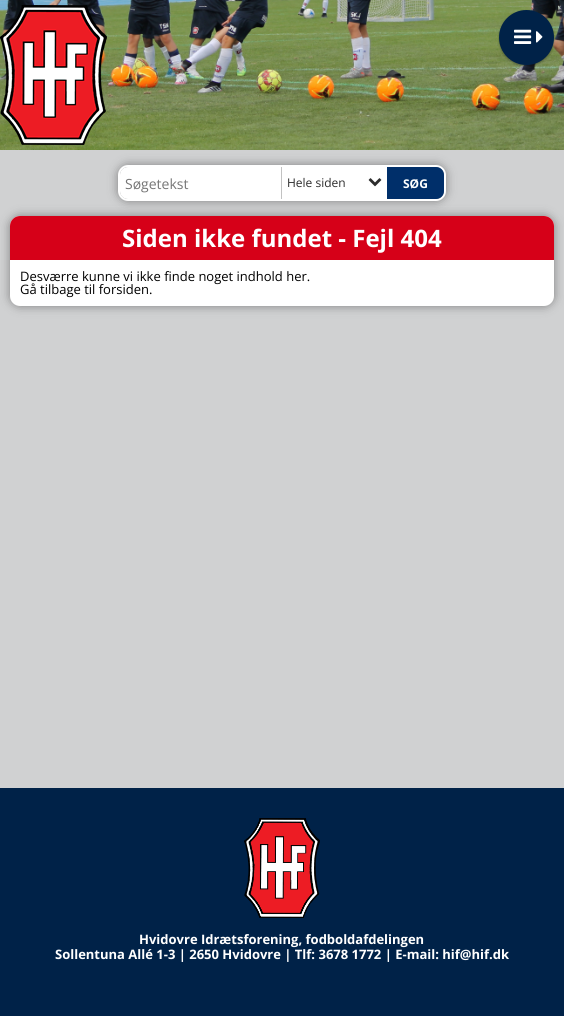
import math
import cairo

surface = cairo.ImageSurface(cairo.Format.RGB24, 564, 1016)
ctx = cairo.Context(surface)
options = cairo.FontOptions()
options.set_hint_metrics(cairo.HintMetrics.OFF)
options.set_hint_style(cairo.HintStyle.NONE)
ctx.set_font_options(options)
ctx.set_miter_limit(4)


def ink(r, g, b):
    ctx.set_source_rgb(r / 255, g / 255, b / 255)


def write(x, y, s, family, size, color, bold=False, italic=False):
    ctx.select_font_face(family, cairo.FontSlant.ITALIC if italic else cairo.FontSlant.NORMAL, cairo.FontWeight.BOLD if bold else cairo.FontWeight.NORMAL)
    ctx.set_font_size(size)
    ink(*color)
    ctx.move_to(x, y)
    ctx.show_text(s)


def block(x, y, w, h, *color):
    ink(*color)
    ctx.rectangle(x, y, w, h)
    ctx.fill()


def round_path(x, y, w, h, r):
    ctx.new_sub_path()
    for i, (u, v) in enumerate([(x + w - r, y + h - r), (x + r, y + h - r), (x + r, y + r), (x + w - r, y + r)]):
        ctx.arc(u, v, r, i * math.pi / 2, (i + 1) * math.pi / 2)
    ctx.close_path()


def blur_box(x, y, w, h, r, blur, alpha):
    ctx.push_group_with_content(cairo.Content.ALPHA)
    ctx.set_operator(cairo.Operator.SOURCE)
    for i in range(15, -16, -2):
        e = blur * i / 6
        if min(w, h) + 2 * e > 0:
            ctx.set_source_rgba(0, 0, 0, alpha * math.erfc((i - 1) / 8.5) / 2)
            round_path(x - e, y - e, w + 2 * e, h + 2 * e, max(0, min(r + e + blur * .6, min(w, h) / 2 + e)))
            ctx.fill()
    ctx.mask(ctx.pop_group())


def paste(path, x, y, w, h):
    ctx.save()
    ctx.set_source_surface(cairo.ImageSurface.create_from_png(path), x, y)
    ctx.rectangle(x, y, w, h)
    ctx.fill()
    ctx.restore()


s1 = dict(family="Open Sans", size=14, color=(117, 117, 117))
s2 = dict(family="Open Sans", size=12, color=(44, 44, 44))
s3 = dict(family="Open Sans", size=12, color=(255, 255, 255), bold=True)
s4 = dict(family="Open Sans", size=24, color=(255, 255, 255), bold=True)
s5 = dict(family="Open Sans", size=13, color=(0, 0, 0))
s6 = dict(family="Open Sans", size=13, color=(255, 255, 255), bold=True)

ink(208, 209, 210)
ctx.paint()
ink(48, 48, 48)
blur_box(10, 216, 544, 90, 10, 5, 0.5)
ink(255, 255, 255)
round_path(10, 216, 544, 90, 10)
ctx.fill()
ink(214, 0, 24)
ctx.new_path()
ctx.move_to(20, 216)
ctx.line_to(544, 216)
ctx.curve_to(549.5, 216, 554, 220.5, 554, 226)
ctx.line_to(554, 260)
ctx.line_to(10, 260)
ctx.line_to(10, 226)
ctx.curve_to(10, 220.5, 14.5, 216, 20, 216)
ctx.close_path()
ctx.fill()
ink(48, 48, 48)
blur_box(118, 165, 328, 36, 10, 5, 0.5)
paste("pic1.png", 0, 0, 564, 150)
paste("pic2.png", 0, 5, 107, 140)
ink(0, 0, 0)
blur_box(499, 11, 55, 55, 27.5, 1, 0.24)
blur_box(499, 11, 55, 55, 27.5, 1.5, 0.12)
ink(0, 34, 72)
ctx.arc(526.5, 37.5, 27.5, 0, 2 * math.pi)
ctx.fill()
paste("pic3.png", 514, 29, 18, 15)
paste("pic4.png", 536, 31, 7, 12)
round_path(119, 166, 326, 34, 9)
ink(255, 255, 255)
ctx.stroke()
ctx.new_path()
ctx.move_to(128, 167)
ctx.line_to(285, 167)
ctx.line_to(285, 199)
ctx.line_to(128, 199)
ctx.curve_to(123.5, 199, 120, 195.5, 120, 191)
ctx.line_to(120, 175)
ctx.curve_to(120, 170.5, 123.5, 167, 128, 167)
ctx.close_path()
ctx.fill()
write(125, 189, "Søgetekst", **s1)
block(285, 167, 102, 32, 255, 255, 255)
block(281, 167, 1, 32, 194, 194, 194)
write(287, 187, "Hele siden", **s2)
paste("pic5.png", 368, 178, 14, 9)
ink(0, 47, 106)
ctx.new_path()
ctx.move_to(387, 167)
ctx.line_to(436, 167)
ctx.curve_to(440.5, 167, 444, 170.5, 444, 175)
ctx.line_to(444, 191)
ctx.curve_to(444, 195.5, 440.5, 199, 436, 199)
ctx.line_to(387, 199)
ctx.close_path()
ctx.fill()
write(403, 188, "SØG", **s3)
write(122, 247, "Siden ikke fundet - Fejl 404", **s4)
write(20, 281, "Desværre kunne vi ikke finde noget indhold her.", **s5)
write(20, 294, "Gå tilbage til forsiden", **s5)
write(149, 294, ".", **s5)
block(0, 788, 564, 228, 0, 34, 72)
paste("pic6.png", 244, 818, 76, 100)
write(139, 944, "Hvidovre Idrætsforening, fodboldafdelingen", **s6)
write(55, 959, "Sollentuna Allé 1-3 | 2650 Hvidovre | Tlf: 3678 1772 | E-mail: hif@hif.dk", **s6)
surface.write_to_png("screenshot.png")
